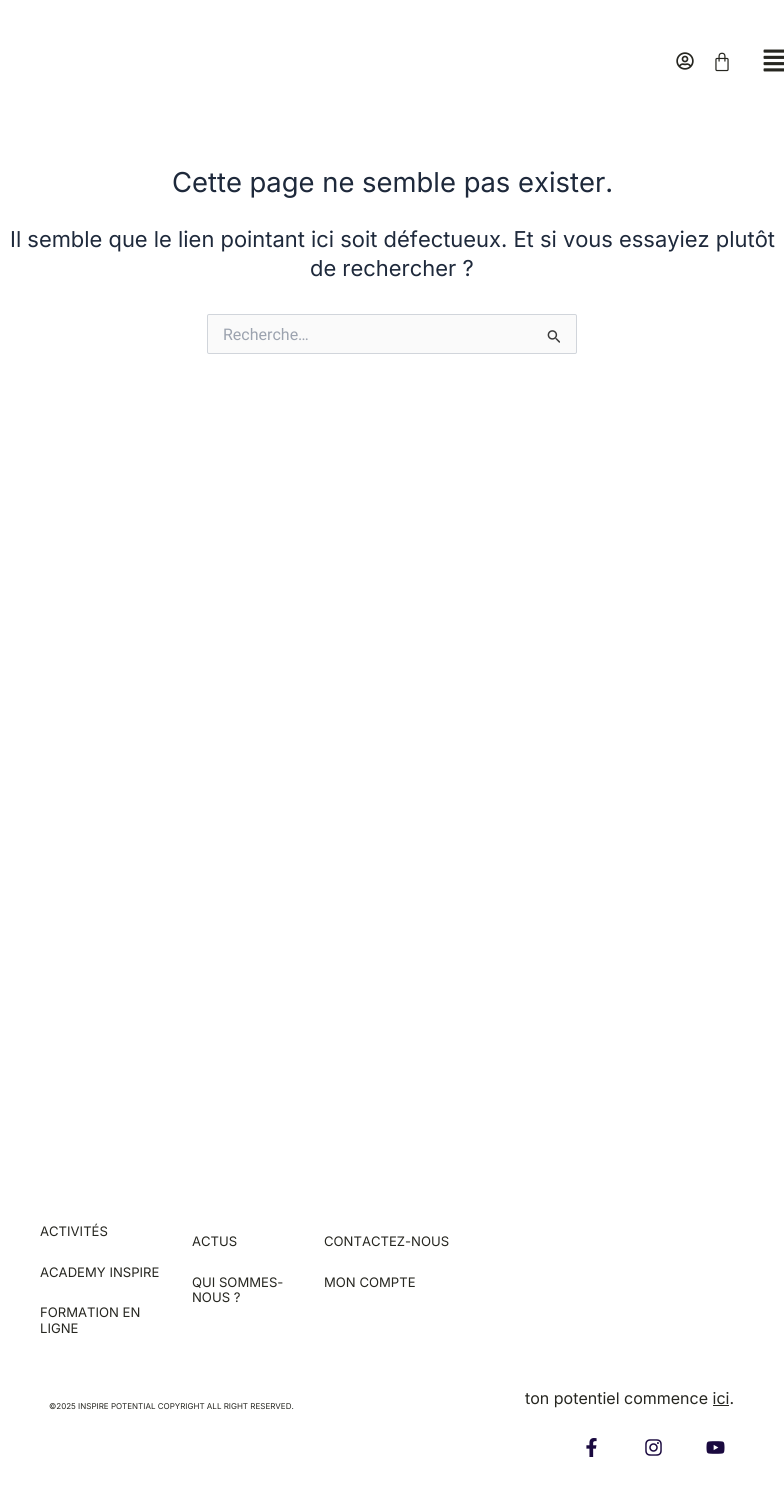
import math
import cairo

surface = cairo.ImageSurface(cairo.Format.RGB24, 784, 1506)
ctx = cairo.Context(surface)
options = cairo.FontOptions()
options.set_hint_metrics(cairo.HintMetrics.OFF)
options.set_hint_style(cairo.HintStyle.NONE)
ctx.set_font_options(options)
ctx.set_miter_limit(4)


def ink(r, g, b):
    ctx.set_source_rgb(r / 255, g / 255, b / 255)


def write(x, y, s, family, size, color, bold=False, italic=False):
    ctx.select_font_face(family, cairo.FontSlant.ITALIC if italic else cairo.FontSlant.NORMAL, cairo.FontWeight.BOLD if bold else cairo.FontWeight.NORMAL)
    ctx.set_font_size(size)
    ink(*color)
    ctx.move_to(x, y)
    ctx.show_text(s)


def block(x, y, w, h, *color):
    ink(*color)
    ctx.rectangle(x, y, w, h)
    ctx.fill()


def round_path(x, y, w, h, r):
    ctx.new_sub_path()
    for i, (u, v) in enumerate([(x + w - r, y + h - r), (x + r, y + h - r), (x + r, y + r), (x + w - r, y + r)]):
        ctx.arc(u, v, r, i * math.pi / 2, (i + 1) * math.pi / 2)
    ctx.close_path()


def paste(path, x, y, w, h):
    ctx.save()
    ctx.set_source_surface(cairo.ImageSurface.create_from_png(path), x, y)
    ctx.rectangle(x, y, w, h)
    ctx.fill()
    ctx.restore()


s1 = dict(family="Inter", size=27.4, color=(30, 41, 59))
s2 = dict(family="Inter", size=21.9, color=(30, 41, 59))
s3 = dict(family="Roboto", size=16, color=(156, 163, 175))
s4 = dict(family="Inter", size=13.1, color=(38, 38, 32))
s5 = dict(family="Inter", size=8, color=(38, 38, 32))
s6 = dict(family="Inter", size=16, color=(38, 38, 32))

ink(255, 255, 255)
ctx.paint()
paste("pic1.png", 676, 52, 18, 18)
paste("pic2.png", 715, 52, 14, 20)
paste("pic3.png", 763, 49, 21, 23)
write(172, 192, "Cette page ne semble pas exister.", **s1)
write(10, 247, "Il semble que le lien pointant ici soit défectueux. Et si vous essayiez plutôt", **s2)
write(310, 276, "de rechercher ?", **s2)
ink(250, 250, 250)
round_path(207.5, 314.5, 369, 39, 1.5)
ctx.fill_preserve()
ink(209, 213, 219)
ctx.set_line_width(1)
ctx.stroke()
write(223, 340, "Recherche…", **s3)
paste("pic4.png", 547, 330, 13, 13)
write(40, 1236, "ACTIVITÉS", **s4)
write(40, 1277, "ACADEMY INSPIRE", **s4)
write(40, 1317, "FORMATION EN", **s4)
write(40, 1333, "LIGNE", **s4)
write(192, 1246, "ACTUS", **s4)
write(192, 1287, "QUI SOMMES-", **s4)
write(192, 1302, "NOUS ?", **s4)
write(324, 1246, "CONTACTEZ-NOUS", **s4)
write(324, 1287, "MON COMPTE", **s4)
write(49, 1409, "©2025 INSPIRE POTENTIAL COPYRIGHT ALL RIGHT RESERVED.", **s5)
write(525, 1404, "ton potentiel commence ici.", **s6)
block(713, 1405, 16, 1, 38, 38, 32)
paste("pic5.png", 586, 1438, 11, 19)
paste("pic6.png", 645, 1439, 17, 17)
paste("pic7.png", 706, 1441, 19, 13)
surface.write_to_png("screenshot.png")
